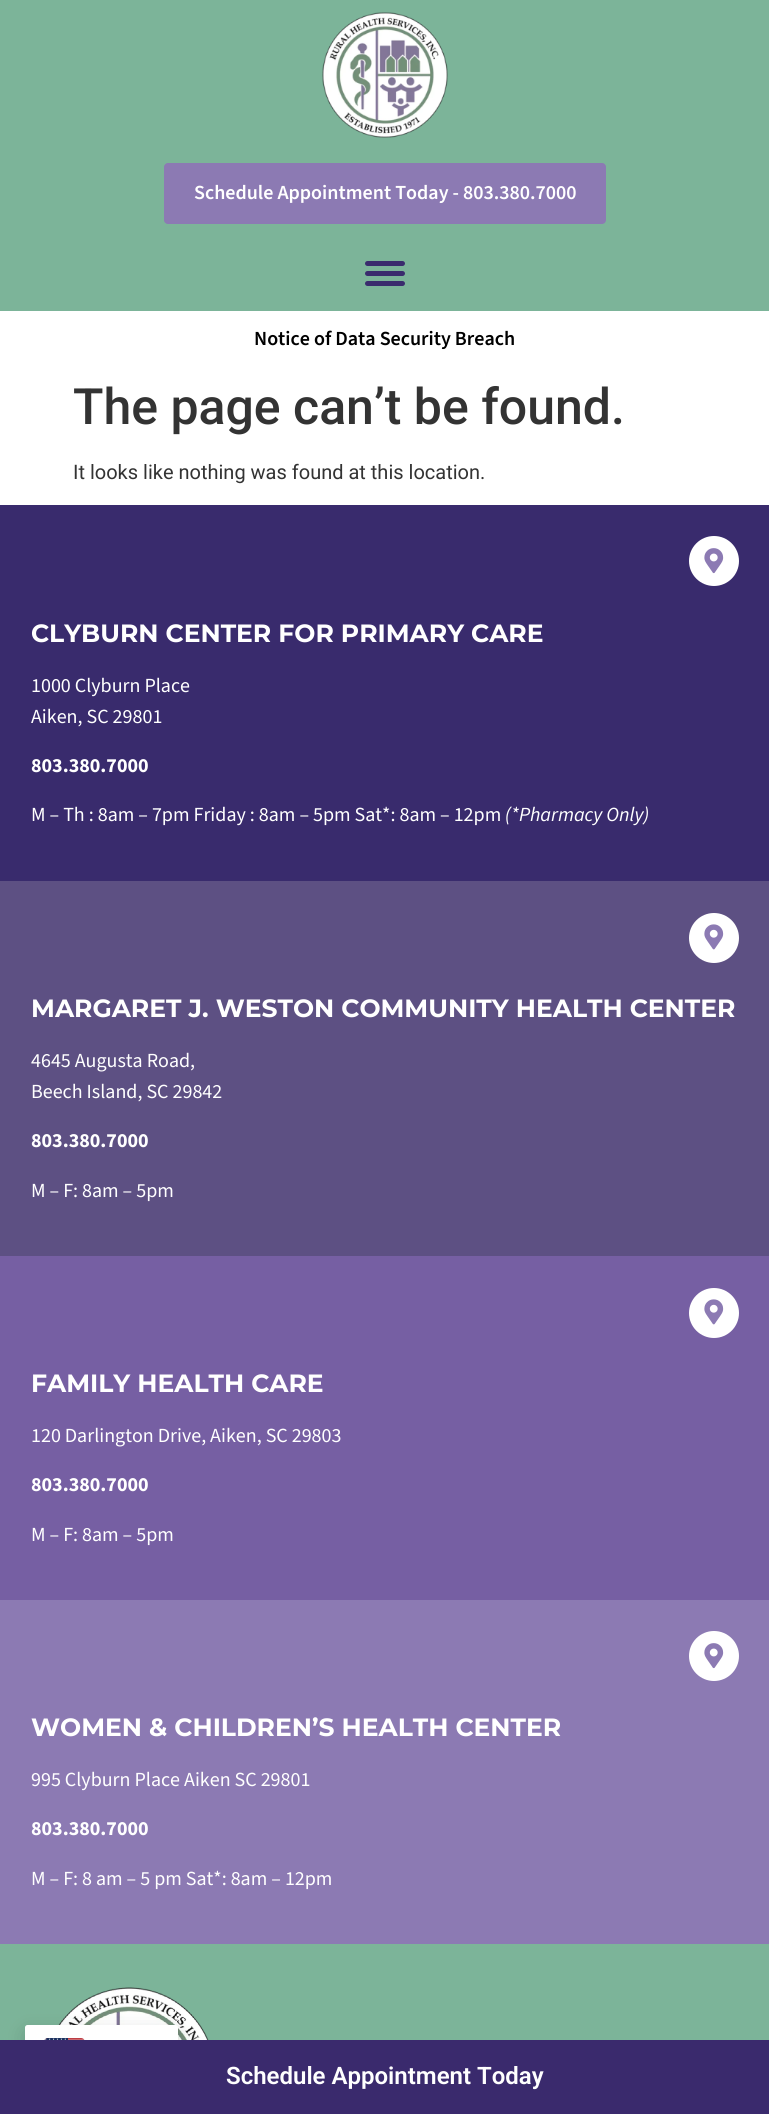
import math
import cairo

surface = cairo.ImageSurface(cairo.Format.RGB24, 769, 2114)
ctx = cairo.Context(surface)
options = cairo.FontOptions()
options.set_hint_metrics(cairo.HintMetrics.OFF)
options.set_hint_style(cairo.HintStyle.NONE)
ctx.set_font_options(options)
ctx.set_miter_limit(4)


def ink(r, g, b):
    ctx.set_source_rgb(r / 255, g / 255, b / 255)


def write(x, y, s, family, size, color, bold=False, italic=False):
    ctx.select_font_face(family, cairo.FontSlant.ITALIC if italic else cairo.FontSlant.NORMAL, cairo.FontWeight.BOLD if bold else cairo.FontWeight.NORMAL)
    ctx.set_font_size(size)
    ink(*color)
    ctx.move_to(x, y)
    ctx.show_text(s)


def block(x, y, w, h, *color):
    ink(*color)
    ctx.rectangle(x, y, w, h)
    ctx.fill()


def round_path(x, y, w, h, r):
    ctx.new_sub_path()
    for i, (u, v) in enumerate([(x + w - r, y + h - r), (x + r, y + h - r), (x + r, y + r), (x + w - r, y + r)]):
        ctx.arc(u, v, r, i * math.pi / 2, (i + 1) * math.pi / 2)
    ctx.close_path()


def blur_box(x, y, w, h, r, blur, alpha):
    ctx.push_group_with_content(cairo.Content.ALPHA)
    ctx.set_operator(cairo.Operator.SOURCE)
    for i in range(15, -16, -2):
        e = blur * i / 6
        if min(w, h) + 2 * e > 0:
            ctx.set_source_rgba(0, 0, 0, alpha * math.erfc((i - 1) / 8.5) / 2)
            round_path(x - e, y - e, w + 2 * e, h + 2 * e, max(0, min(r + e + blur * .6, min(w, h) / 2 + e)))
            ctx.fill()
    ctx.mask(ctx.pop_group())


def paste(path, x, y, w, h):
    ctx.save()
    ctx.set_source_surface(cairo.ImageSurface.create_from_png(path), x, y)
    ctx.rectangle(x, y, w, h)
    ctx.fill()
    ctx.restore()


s1 = dict(family="Source Sans 3 SemiBold", size=20, color=(255, 255, 255))
s2 = dict(family="Source Sans 3 SemiBold", size=20, color=(0, 0, 0))
s3 = dict(family="Roboto Medium", size=50, color=(51, 51, 51))
s4 = dict(family="Roboto", size=20, color=(51, 51, 51))
s5 = dict(family="Montserrat", size=25, color=(255, 255, 255), bold=True)
s6 = dict(family="Source Sans 3", size=20, color=(255, 255, 255))
s7 = dict(family="Source Sans 3", size=20, color=(255, 255, 255), bold=True)
s8 = dict(family="Source Sans 3", size=20, color=(255, 255, 255), italic=True)
s9 = dict(family="Roboto SemiBold", size=24, color=(255, 255, 255))

ink(255, 255, 255)
ctx.paint()
block(0, 0, 769, 311, 124, 180, 153)
paste("pic1.png", 322, 12, 126, 126)
ink(140, 122, 179)
round_path(164, 163, 442, 61, 4)
ctx.fill()
write(194, 199, "Schedule Appointment Today - 803.380.7000", **s1)
ink(58, 43, 109)
round_path(365, 261, 40, 5, 2.5)
ctx.fill()
round_path(365, 271, 40, 5, 2.5)
ctx.fill()
round_path(365, 281, 40, 5, 2.5)
ctx.fill()
write(254, 345, "Notice of Data Security Breach", **s2)
write(73, 424, "The page can’t be found.", **s3)
write(73, 479, "It looks like nothing was found at this location.", **s4)
block(0, 505, 769, 376, 57, 43, 109)
ink(255, 255, 255)
ctx.new_path()
ctx.arc(714, 561, 25, 0, 2 * math.pi)
ctx.fill()
paste("pic2.png", 704, 548, 20, 26)
write(31, 642, "CLYBURN CENTER FOR PRIMARY CARE", **s5)
write(31, 692, "1000 Clyburn Place", **s6)
write(31, 723, "Aiken, SC 29801", **s6)
write(31, 772, "803.380.7000", **s7)
write(31, 821, "M – Th : 8am – 7pm Friday : 8am – 5pm Sat*: 8am – 12pm", **s6)
write(505, 821, "(*Pharmacy Only)", **s8)
block(0, 881, 769, 375, 93, 80, 131)
ink(255, 255, 255)
ctx.new_path()
ctx.arc(714, 938, 25, 0, 2 * math.pi)
ctx.fill()
paste("pic3.png", 704, 924, 20, 26)
write(31, 1017, "MARGARET J. WESTON COMMUNITY HEALTH CENTER", **s5)
write(31, 1067, "4645 Augusta Road,", **s6)
write(31, 1098, "Beech Island, SC 29842", **s6)
write(31, 1147, "803.380.7000", **s7)
write(31, 1197, "M – F: 8am – 5pm", **s6)
block(0, 1256, 769, 344, 118, 95, 163)
ink(255, 255, 255)
ctx.new_path()
ctx.arc(714, 1313, 25, 0, 2 * math.pi)
ctx.fill()
paste("pic3.png", 704, 1299, 20, 26)
write(31, 1392, "FAMILY HEALTH CARE", **s5)
write(31, 1442, "120 Darlington Drive, Aiken, SC 29803", **s6)
write(31, 1491, "803.380.7000", **s7)
write(31, 1541, "M – F: 8am – 5pm", **s6)
block(0, 1600, 769, 344, 140, 122, 179)
ink(255, 255, 255)
ctx.new_path()
ctx.arc(714, 1656, 25, 0, 2 * math.pi)
ctx.fill()
paste("pic2.png", 704, 1643, 20, 26)
write(31, 1736, "WOMEN & CHILDREN’S HEALTH CENTER", **s5)
write(31, 1786, "995 Clyburn Place Aiken SC 29801", **s6)
write(31, 1835, "803.380.7000", **s7)
write(31, 1885, "M – F: 8 am – 5 pm Sat*: 8am – 12pm", **s6)
block(0, 1944, 769, 96, 124, 180, 153)
paste("pic4.png", 58, 1987, 151, 53)
ink(0, 0, 0)
blur_box(25, 2031, 153, 57, 2.5, 9.5, 0.15)
ink(255, 255, 255)
round_path(25, 2025, 153, 56, 2.5)
ctx.fill()
paste("pic5.png", 44, 2038, 41, 2)
block(0, 2040, 769, 74, 58, 42, 109)
write(226, 2084, "Schedule Appointment Today", **s9)
surface.write_to_png("screenshot.png")
